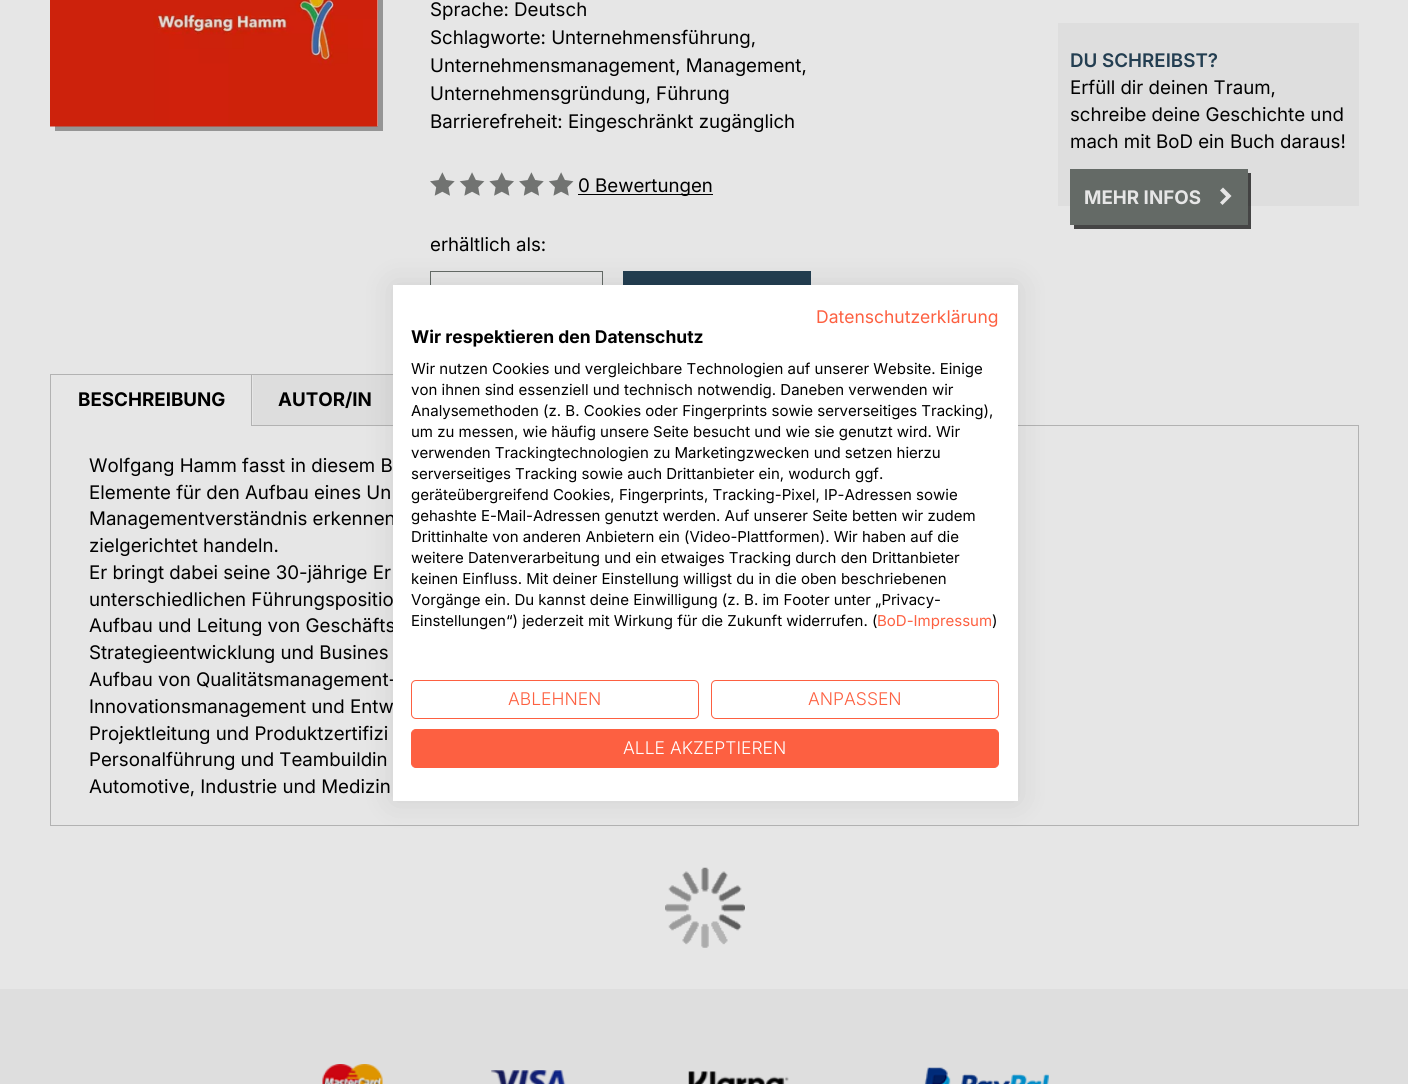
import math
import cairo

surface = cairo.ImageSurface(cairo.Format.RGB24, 1408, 1084)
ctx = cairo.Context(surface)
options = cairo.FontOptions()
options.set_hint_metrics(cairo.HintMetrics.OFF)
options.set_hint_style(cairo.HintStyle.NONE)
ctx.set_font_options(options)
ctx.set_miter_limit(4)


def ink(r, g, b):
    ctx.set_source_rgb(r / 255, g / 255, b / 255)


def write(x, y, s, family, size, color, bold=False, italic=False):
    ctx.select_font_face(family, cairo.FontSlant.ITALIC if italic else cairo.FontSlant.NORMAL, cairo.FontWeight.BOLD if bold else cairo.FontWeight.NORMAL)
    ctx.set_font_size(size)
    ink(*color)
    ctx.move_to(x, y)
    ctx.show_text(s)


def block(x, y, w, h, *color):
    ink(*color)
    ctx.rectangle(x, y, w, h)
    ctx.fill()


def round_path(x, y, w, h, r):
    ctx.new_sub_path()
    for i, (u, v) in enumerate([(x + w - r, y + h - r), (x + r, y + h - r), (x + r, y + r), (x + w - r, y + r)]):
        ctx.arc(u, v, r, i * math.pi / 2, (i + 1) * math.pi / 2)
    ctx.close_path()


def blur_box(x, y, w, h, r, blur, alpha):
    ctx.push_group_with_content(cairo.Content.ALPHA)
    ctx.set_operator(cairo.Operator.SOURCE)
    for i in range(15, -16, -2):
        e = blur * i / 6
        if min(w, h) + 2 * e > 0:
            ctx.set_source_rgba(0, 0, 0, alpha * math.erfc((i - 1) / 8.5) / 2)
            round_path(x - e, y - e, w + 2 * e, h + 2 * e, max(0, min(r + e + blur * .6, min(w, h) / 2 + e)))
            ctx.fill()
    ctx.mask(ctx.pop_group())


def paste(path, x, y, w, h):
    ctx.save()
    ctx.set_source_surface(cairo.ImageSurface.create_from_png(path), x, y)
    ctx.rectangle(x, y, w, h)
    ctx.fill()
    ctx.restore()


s1 = dict(family="Inter", size=18.75, color=(0, 0, 0))
s2 = dict(family="Inter SemiBold", size=18.75, color=(35, 62, 81))
s3 = dict(family="Inter", size=18.75, color=(230, 230, 230), bold=True)
s4 = dict(family="Inter", size=18.75, color=(0, 0, 0), bold=True)
s5 = dict(family="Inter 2", size=17.5, color=(253, 96, 65))
s6 = dict(family="Inter", size=17.5, color=(0, 0, 0), bold=True)
s7 = dict(family="Inter 2", size=15, color=(0, 0, 0))
s8 = dict(family="Inter 2", size=15, color=(253, 96, 65))
s9 = dict(family="Inter Light", size=17.5, color=(253, 96, 65))
s10 = dict(family="Inter Light", size=17.5, color=(255, 255, 255))

ink(222, 222, 222)
ctx.paint()
block(0, 0, 1408, 989, 230, 230, 230)
ink(149, 149, 149)
ctx.new_path()
ctx.move_to(55, 126)
ctx.line_to(55, 131)
ctx.line_to(383, 131)
ctx.line_to(383, -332)
ctx.line_to(378, -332)
ctx.line_to(378, 126)
ctx.close_path()
ctx.fill()
paste("pic1.png", 50, 0, 328, 127)
write(430, 16, "Sprache: Deutsch", **s1)
write(430, 44, "Schlagworte: Unternehmensführung,", **s1)
write(430, 72, "Unternehmensmanagement, Management,", **s1)
write(430, 100, "Unternehmensgründung, Führung", **s1)
write(430, 128, "Barrierefreheit: Eingeschränkt zugänglich", **s1)
paste("pic2.png", 430, 172, 144, 24)
block(578, 194, 135, 1, 0, 0, 0)
write(578, 192, "0 Bewertungen", **s1)
write(430, 251, "erhältlich als:", **s1)
ctx.rectangle(430.5, 271.5, 172, 39)
ink(100, 106, 102)
ctx.set_line_width(1)
ctx.stroke()
block(623, 271, 188, 14, 35, 62, 81)
block(1058, 23, 301, 183, 222, 222, 222)
write(1070, 67, "DU SCHREIBST?", **s2)
write(1070, 94, "Erfüll dir deinen Traum,", **s1)
write(1070, 121, "schreibe deine Geschichte und", **s1)
write(1070, 148, "mach mit BoD ein Buch daraus!", **s1)
ctx.set_source_rgba(0, 0, 0, 0.7)
ctx.new_path()
ctx.move_to(1074, 225)
ctx.line_to(1074, 229)
ctx.line_to(1251, 229)
ctx.line_to(1251, 173)
ctx.line_to(1248, 173)
ctx.line_to(1248, 225)
ctx.close_path()
ctx.fill()
block(1070, 169, 178, 56, 100, 106, 102)
write(1084, 204, "MEHR INFOS", **s3)
ctx.new_path()
ctx.move_to(1226, 196.5)
ctx.line_to(1220, 202.5)
ctx.line_to(1222.5, 205)
ctx.line_to(1231.5, 196)
ctx.line_to(1223, 187.5)
ctx.line_to(1220, 190.5)
ctx.close_path()
ctx.fill()
block(50, 374, 349, 1, 178, 178, 178)
block(50, 374, 1, 54, 178, 178, 178)
ctx.rectangle(50.5, 425.5, 1308, 400)
ctx.stroke()
block(51, 425, 200, 1, 230, 230, 230)
write(78, 406, "BESCHREIBUNG", **s4)
block(251, 374, 1, 52, 178, 178, 178)
block(253, 375, 140, 50, 221, 221, 221)
write(278, 406, "AUTOR/IN", **s4)
write(89, 472, "Wolfgang Hamm fasst in diesem B", **s1)
write(89, 499, "Elemente für den Aufbau eines Un", **s1)
write(89, 525, "Managementverständnis erkennen", **s1)
write(89, 552, "zielgerichtet handeln.", **s1)
write(89, 579, "Er bringt dabei seine 30-jährige Er", **s1)
write(89, 606, "unterschiedlichen Führungspositio", **s1)
write(89, 632, "Aufbau und Leitung von Geschäfts", **s1)
write(89, 659, "Strategieentwicklung und Busines", **s1)
write(89, 686, "Aufbau von Qualitätsmanagement-", **s1)
write(89, 713, "Innovationsmanagement und Entw", **s1)
write(89, 740, "Projektleitung und Produktzertifizi", **s1)
write(89, 766, "Personalführung und Teambuildin", **s1)
write(89, 793, "Automotive, Industrie und Medizin", **s1)
paste("pic3.png", 665, 867, 80, 81)
paste("pic4.png", 322, 1064, 61, 20)
paste("pic5.png", 491, 1070, 75, 14)
paste("pic6.png", 688, 1071, 101, 13)
paste("pic7.png", 924, 1067, 125, 17)
ink(0, 0, 0)
blur_box(393, 285, 625, 516, 0, 15, 0.1)
block(393, 285, 625, 516, 255, 255, 255)
write(816, 323, "Datenschutzerklärung", **s5)
write(411, 343, "Wir respektieren den Datenschutz", **s6)
write(411, 374, "Wir nutzen Cookies und vergleichbare Technologien auf unserer Website. Einige", **s7)
write(411, 395, "von ihnen sind essenziell und technisch notwendig. Daneben verwenden wir", **s7)
write(411, 416, "Analysemethoden (z. B. Cookies oder Fingerprints sowie serverseitiges Tracking),", **s7)
write(411, 437, "um zu messen, wie häufig unsere Seite besucht und wie sie genutzt wird. Wir", **s7)
write(411, 458, "verwenden Trackingtechnologien zu Marketingzwecken und setzen hierzu", **s7)
write(411, 479, "serverseitiges Tracking sowie auch Drittanbieter ein, wodurch ggf.", **s7)
write(411, 500, "geräteübergreifend Cookies, Fingerprints, Tracking-Pixel, IP-Adressen sowie", **s7)
write(411, 521, "gehashte E-Mail-Adressen genutzt werden. Auf unserer Seite betten wir zudem", **s7)
write(411, 542, "Drittinhalte von anderen Anbietern ein (Video-Plattformen). Wir haben auf die", **s7)
write(411, 563, "weitere Datenverarbeitung und ein etwaiges Tracking durch den Drittanbieter", **s7)
write(411, 584, "keinen Einfluss. Mit deiner Einstellung willigst du in die oben beschriebenen", **s7)
write(411, 605, "Vorgänge ein. Du kannst deine Einwilligung (z. B. im Footer unter „Privacy-", **s7)
write(411, 626, "Einstellungen“) jederzeit mit Wirkung für die Zukunft widerrufen. (", **s7)
write(877, 626, "BoD-Impressum", **s8)
write(992, 626, ")", **s7)
round_path(411.5, 680.5, 287, 38, 4.5)
ink(253, 96, 65)
ctx.stroke()
write(508, 705, "ABLEHNEN", **s9)
round_path(711.5, 680.5, 287, 38, 4.5)
ctx.stroke()
write(808, 705, "ANPASSEN", **s9)
round_path(411.5, 729.5, 587, 38, 4.5)
ctx.fill_preserve()
ctx.stroke()
write(623, 754, "ALLE AKZEPTIEREN", **s10)
surface.write_to_png("screenshot.png")
